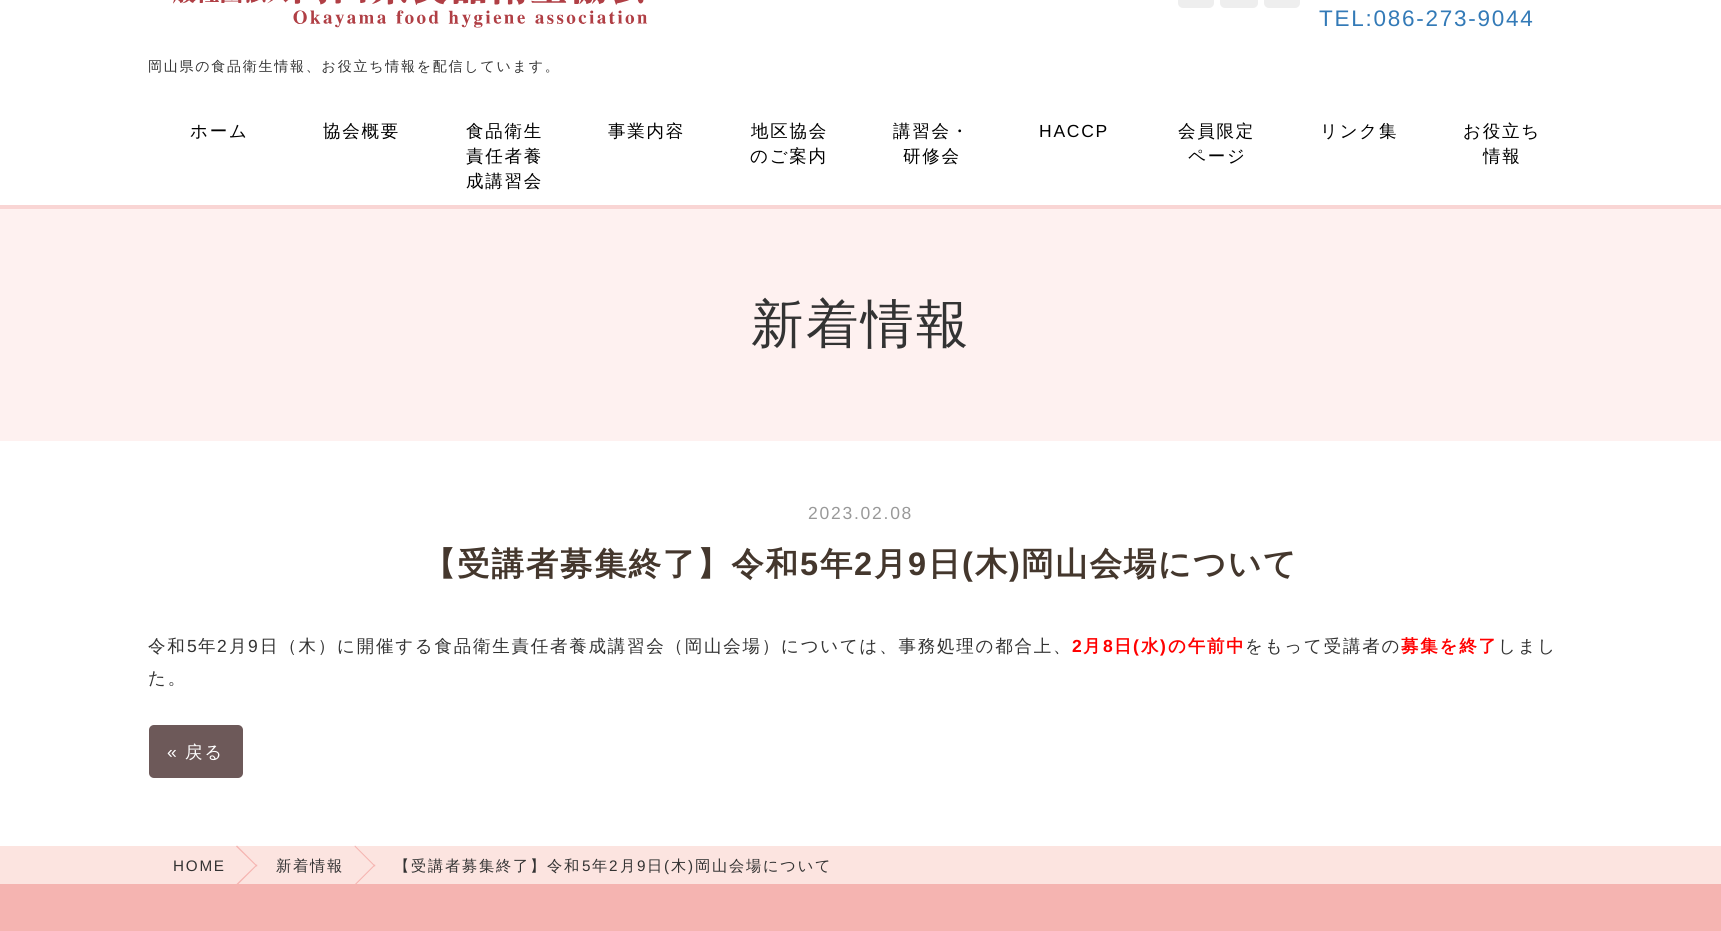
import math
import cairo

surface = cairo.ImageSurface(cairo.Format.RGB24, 1721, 931)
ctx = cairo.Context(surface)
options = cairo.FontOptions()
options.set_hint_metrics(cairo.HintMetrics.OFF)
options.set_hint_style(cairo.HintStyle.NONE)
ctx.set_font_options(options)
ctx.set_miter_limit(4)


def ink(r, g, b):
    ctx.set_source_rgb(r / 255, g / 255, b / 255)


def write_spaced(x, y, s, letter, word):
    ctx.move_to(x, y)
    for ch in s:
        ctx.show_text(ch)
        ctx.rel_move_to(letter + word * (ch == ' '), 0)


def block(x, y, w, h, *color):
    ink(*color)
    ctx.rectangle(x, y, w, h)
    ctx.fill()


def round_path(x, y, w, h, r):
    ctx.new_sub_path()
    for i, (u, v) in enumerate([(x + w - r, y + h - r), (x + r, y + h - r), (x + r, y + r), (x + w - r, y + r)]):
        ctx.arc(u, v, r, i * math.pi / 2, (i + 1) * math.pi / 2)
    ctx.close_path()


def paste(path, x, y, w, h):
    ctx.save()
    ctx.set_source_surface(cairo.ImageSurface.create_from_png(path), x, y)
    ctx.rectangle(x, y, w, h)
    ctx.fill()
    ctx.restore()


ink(255, 255, 255)
ctx.paint()
ink(238, 238, 238)
round_path(1178, -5, 36, 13, 5)
ctx.fill()
round_path(1220, -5, 38, 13, 5)
ctx.fill()
round_path(1264, -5, 36, 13, 5)
ctx.fill()
ctx.select_font_face("Liberation Sans")
ctx.set_font_size(22.5)
ink(51, 122, 183)
write_spaced(1319, 26, "TEL:086-273-9044", 1.75, 0)
paste("pic1.png", 173, 0, 475, 28)
ctx.select_font_face("WenQuanYi Zen Hei Medium")
ctx.set_font_size(14)
ink(51, 51, 51)
write_spaced(148, 71, "岡山県の食品衛生情報、お役立ち情報を配信しています。", 1.75, 0)
ctx.set_font_size(17.5)
ink(0, 0, 0)
write_spaced(190, 137, "ホーム", 1.75, 0)
write_spaced(323, 137, "協会概要", 1.75, 0)
write_spaced(466, 137, "食品衛生", 1.75, 0)
write_spaced(466, 162, "責任者養", 1.75, 0)
write_spaced(466, 187, "成講習会", 1.75, 0)
write_spaced(608, 137, "事業内容", 1.75, 0)
write_spaced(751, 137, "地区協会", 1.75, 0)
write_spaced(750, 162, "のご案内", 1.75, 0)
write_spaced(893, 137, "講習会・", 1.75, 0)
write_spaced(903, 162, "研修会", 1.75, 0)
ctx.select_font_face("Liberation Sans")
write_spaced(1039, 137, "HACCP", 1.75, 0)
ctx.select_font_face("WenQuanYi Zen Hei Medium")
write_spaced(1178, 137, "会員限定", 1.75, 0)
write_spaced(1188, 162, "ページ", 1.75, 0)
write_spaced(1320, 137, "リンク集", 1.75, 0)
write_spaced(1463, 137, "お役立ち", 1.75, 0)
write_spaced(1483, 162, "情報", 1.75, 0)
block(0, 205, 1721, 4, 249, 213, 212)
block(0, 209, 1721, 232, 254, 241, 240)
ctx.set_font_size(52.5)
ink(51, 51, 51)
write_spaced(751, 342, "新着情報", 2.5, 0)
ctx.select_font_face("Liberation Sans")
ctx.set_font_size(17.5)
ink(153, 153, 153)
write_spaced(808, 519, "2023.02.08", 1.75, 0)
ctx.select_font_face("WenQuanYi Zen Hei", cairo.FontSlant.NORMAL, cairo.FontWeight.BOLD)
ctx.set_font_size(32.5)
ink(68, 55, 45)
write_spaced(423, 575, "【受講者募集終了】令和", 1.75, 0)
ctx.select_font_face("Liberation Sans", cairo.FontSlant.NORMAL, cairo.FontWeight.BOLD)
write_spaced(800, 575, "5", 1.75, 0)
ctx.select_font_face("WenQuanYi Zen Hei", cairo.FontSlant.NORMAL, cairo.FontWeight.BOLD)
write_spaced(820, 575, "年", 1.75, 0)
ctx.select_font_face("Liberation Sans", cairo.FontSlant.NORMAL, cairo.FontWeight.BOLD)
write_spaced(854, 575, "2", 1.75, 0)
ctx.select_font_face("WenQuanYi Zen Hei", cairo.FontSlant.NORMAL, cairo.FontWeight.BOLD)
write_spaced(874, 575, "月", 1.75, 0)
ctx.select_font_face("Liberation Sans", cairo.FontSlant.NORMAL, cairo.FontWeight.BOLD)
write_spaced(908, 575, "9", 1.75, 0)
ctx.select_font_face("WenQuanYi Zen Hei", cairo.FontSlant.NORMAL, cairo.FontWeight.BOLD)
write_spaced(928, 575, "日", 1.75, 0)
ctx.select_font_face("Liberation Sans", cairo.FontSlant.NORMAL, cairo.FontWeight.BOLD)
write_spaced(962, 575, "(", 1.75, 0)
ctx.select_font_face("WenQuanYi Zen Hei", cairo.FontSlant.NORMAL, cairo.FontWeight.BOLD)
write_spaced(975, 575, "木", 1.75, 0)
ctx.select_font_face("Liberation Sans", cairo.FontSlant.NORMAL, cairo.FontWeight.BOLD)
write_spaced(1009, 575, ")", 1.75, 0)
ctx.select_font_face("WenQuanYi Zen Hei", cairo.FontSlant.NORMAL, cairo.FontWeight.BOLD)
write_spaced(1021, 575, "岡山会場について", 1.75, 0)
ctx.select_font_face("WenQuanYi Zen Hei Medium")
ctx.set_font_size(17.5)
ink(51, 51, 51)
write_spaced(148, 652, "令和", 1.75, 0)
ctx.select_font_face("Liberation Sans")
write_spaced(187, 652, "5", 1.75, 0)
ctx.select_font_face("WenQuanYi Zen Hei Medium")
write_spaced(198, 652, "年", 1.75, 0)
ctx.select_font_face("Liberation Sans")
write_spaced(217, 652, "2", 1.75, 0)
ctx.select_font_face("WenQuanYi Zen Hei Medium")
write_spaced(229, 652, "月", 1.75, 0)
ctx.select_font_face("Liberation Sans")
write_spaced(248, 652, "9", 1.75, 0)
ctx.select_font_face("WenQuanYi Zen Hei Medium")
write_spaced(260, 652, "日（木）に開催する食品衛生責任者養成講習会（岡山会場）については、事務処理の都合上、", 1.75, 0)
ctx.select_font_face("Liberation Sans", cairo.FontSlant.NORMAL, cairo.FontWeight.BOLD)
ink(255, 0, 0)
write_spaced(1072, 652, "2", 1.75, 0)
ctx.select_font_face("WenQuanYi Zen Hei", cairo.FontSlant.NORMAL, cairo.FontWeight.BOLD)
write_spaced(1083, 652, "月", 1.75, 0)
ctx.select_font_face("Liberation Sans", cairo.FontSlant.NORMAL, cairo.FontWeight.BOLD)
write_spaced(1103, 652, "8", 1.75, 0)
ctx.select_font_face("WenQuanYi Zen Hei", cairo.FontSlant.NORMAL, cairo.FontWeight.BOLD)
write_spaced(1114, 652, "日", 1.75, 0)
ctx.select_font_face("Liberation Sans", cairo.FontSlant.NORMAL, cairo.FontWeight.BOLD)
write_spaced(1133, 652, "(", 1.75, 0)
ctx.select_font_face("WenQuanYi Zen Hei", cairo.FontSlant.NORMAL, cairo.FontWeight.BOLD)
write_spaced(1141, 652, "水", 1.75, 0)
ctx.select_font_face("Liberation Sans", cairo.FontSlant.NORMAL, cairo.FontWeight.BOLD)
write_spaced(1160, 652, ")", 1.75, 0)
ctx.select_font_face("WenQuanYi Zen Hei", cairo.FontSlant.NORMAL, cairo.FontWeight.BOLD)
write_spaced(1168, 652, "の午前中", 1.75, 0)
ctx.select_font_face("WenQuanYi Zen Hei Medium")
ink(51, 51, 51)
write_spaced(1245, 652, "をもって受講者の", 1.75, 0)
ctx.select_font_face("WenQuanYi Zen Hei", cairo.FontSlant.NORMAL, cairo.FontWeight.BOLD)
ink(255, 0, 0)
write_spaced(1401, 652, "募集を終了", 1.75, 0)
ctx.select_font_face("WenQuanYi Zen Hei Medium")
ink(51, 51, 51)
write_spaced(1498, 652, "しまし", 1.75, 0)
write_spaced(148, 684, "た。", 1.75, 0)
ink(109, 89, 89)
round_path(149, 725, 94, 53, 5)
ctx.fill()
ctx.select_font_face("Liberation Sans")
ink(255, 255, 255)
write_spaced(167, 758, "«", 1.75, 0)
ctx.select_font_face("WenQuanYi Zen Hei Medium")
write_spaced(185, 758, "戻る", 1.75, 0)
block(0, 846, 1721, 38, 252, 228, 224)
ctx.select_font_face("Liberation Sans")
ctx.set_font_size(15.25)
ink(51, 51, 51)
write_spaced(173, 871, "HOME", 1.75, 0)
ink(245, 180, 177)
ctx.new_path()
ctx.move_to(237, 845.5)
ctx.line_to(257.5, 866)
ctx.line_to(256.5, 866.5)
ctx.line_to(236, 846.5)
ctx.close_path()
ctx.fill()
ctx.select_font_face("WenQuanYi Zen Hei Medium")
ink(51, 51, 51)
write_spaced(276, 871, "新着情報", 1.75, 0)
ink(245, 180, 177)
ctx.new_path()
ctx.move_to(238.5, 884)
ctx.line_to(236.5, 884)
ctx.line_to(256.5, 864.5)
ctx.line_to(257.5, 865)
ctx.close_path()
ctx.fill()
ctx.new_path()
ctx.move_to(355, 845.5)
ctx.line_to(375.5, 866)
ctx.line_to(374.5, 866.5)
ctx.line_to(354.5, 846.5)
ctx.close_path()
ctx.fill()
ink(51, 51, 51)
write_spaced(394, 871, "【受講者募集終了】令和", 1.75, 0)
ctx.select_font_face("Liberation Sans")
write_spaced(582, 871, "5", 1.75, 0)
ctx.select_font_face("WenQuanYi Zen Hei Medium")
write_spaced(592, 871, "年", 1.75, 0)
ctx.select_font_face("Liberation Sans")
write_spaced(609, 871, "2", 1.75, 0)
ctx.select_font_face("WenQuanYi Zen Hei Medium")
write_spaced(620, 871, "月", 1.75, 0)
ctx.select_font_face("Liberation Sans")
write_spaced(637, 871, "9", 1.75, 0)
ctx.select_font_face("WenQuanYi Zen Hei Medium")
write_spaced(647, 871, "日", 1.75, 0)
ctx.select_font_face("Liberation Sans")
write_spaced(664, 871, "(", 1.75, 0)
ctx.select_font_face("WenQuanYi Zen Hei Medium")
write_spaced(671, 871, "木", 1.75, 0)
ctx.select_font_face("Liberation Sans")
write_spaced(688, 871, ")", 1.75, 0)
ctx.select_font_face("WenQuanYi Zen Hei Medium")
write_spaced(695, 871, "岡山会場について", 1.75, 0)
ink(245, 180, 177)
ctx.new_path()
ctx.move_to(356.5, 884)
ctx.line_to(355, 884)
ctx.line_to(374.5, 864.5)
ctx.line_to(375.5, 865)
ctx.close_path()
ctx.fill()
block(0, 884, 1721, 47, 245, 180, 177)
surface.write_to_png("screenshot.png")
